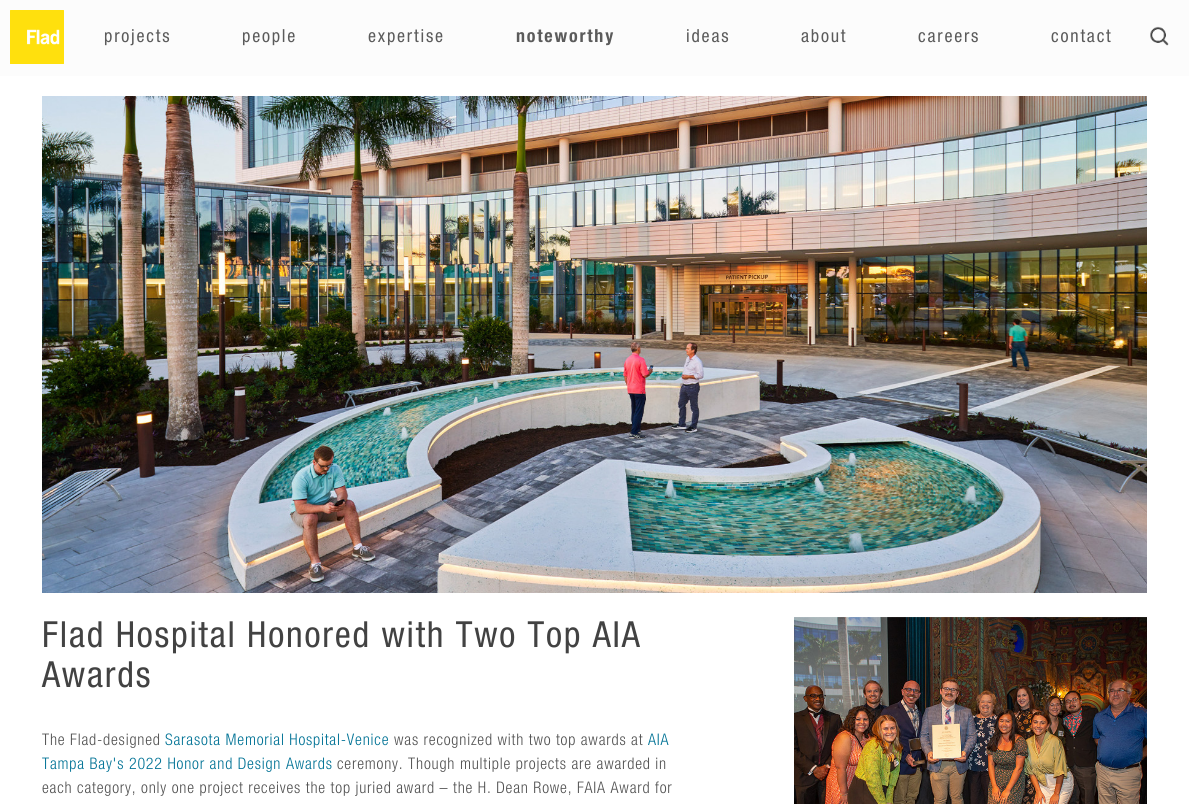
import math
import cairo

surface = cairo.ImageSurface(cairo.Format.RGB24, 1189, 804)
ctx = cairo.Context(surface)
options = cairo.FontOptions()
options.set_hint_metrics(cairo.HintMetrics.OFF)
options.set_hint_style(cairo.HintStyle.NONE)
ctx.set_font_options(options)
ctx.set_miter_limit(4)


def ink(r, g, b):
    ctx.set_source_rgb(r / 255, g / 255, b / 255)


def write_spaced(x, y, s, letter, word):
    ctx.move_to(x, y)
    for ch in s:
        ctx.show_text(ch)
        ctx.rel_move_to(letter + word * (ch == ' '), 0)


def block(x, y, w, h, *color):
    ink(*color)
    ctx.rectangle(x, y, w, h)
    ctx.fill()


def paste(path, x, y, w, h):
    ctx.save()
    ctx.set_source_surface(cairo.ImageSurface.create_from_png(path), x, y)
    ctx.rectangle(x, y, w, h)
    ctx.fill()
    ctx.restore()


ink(255, 255, 255)
ctx.paint()
block(0, 0, 1189, 76, 252, 252, 252)
paste("pic1.png", 10, 10, 54, 54)
ctx.select_font_face("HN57")
ctx.set_font_size(18)
ink(91, 91, 91)
write_spaced(104, 42, "projects", 1.8, 0)
write_spaced(242, 42, "people", 1.8, 0)
write_spaced(368, 42, "expertise", 1.8, 0)
ctx.select_font_face("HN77")
write_spaced(516, 42, "noteworthy", 1.8, 0)
ctx.select_font_face("HN57")
write_spaced(686, 42, "ideas", 1.8, 0)
write_spaced(801, 42, "about", 1.8, 0)
write_spaced(918, 42, "careers", 1.8, 0)
write_spaced(1051, 42, "contact", 1.8, 0)
paste("pic2.png", 1150, 26, 19, 20)
paste("pic3.png", 42, 96, 1105, 497)
ctx.set_font_size(36)
ink(66, 66, 66)
write_spaced(42, 647, "Flad Hospital Honored with Two Top AIA", 1.8, 0)
write_spaced(42, 687, "Awards", 1.8, 0)
paste("pic4.png", 794, 617, 353, 187)
ctx.select_font_face("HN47")
ctx.set_font_size(16)
ink(82, 82, 82)
write_spaced(42, 745, "The Flad-designed", 0.8, 0)
ink(0, 114, 149)
write_spaced(165, 745, "Sarasota Memorial Hospital-Venice", 0.8, 0)
ink(82, 82, 82)
write_spaced(394, 745, "was recognized with two top awards at", 0.8, 0)
ink(0, 114, 149)
write_spaced(648, 745, "AIA", 0.8, 0)
write_spaced(42, 769, "Tampa Bay's 2022 Honor and Design Awards", 0.8, 0)
ink(82, 82, 82)
write_spaced(337, 769, "ceremony. Though multiple projects are awarded in", 0.8, 0)
write_spaced(42, 793, "each category, only one project receives the top juried award – the H. Dean Rowe, FAIA Award for", 0.8, 0)
surface.write_to_png("screenshot.png")
